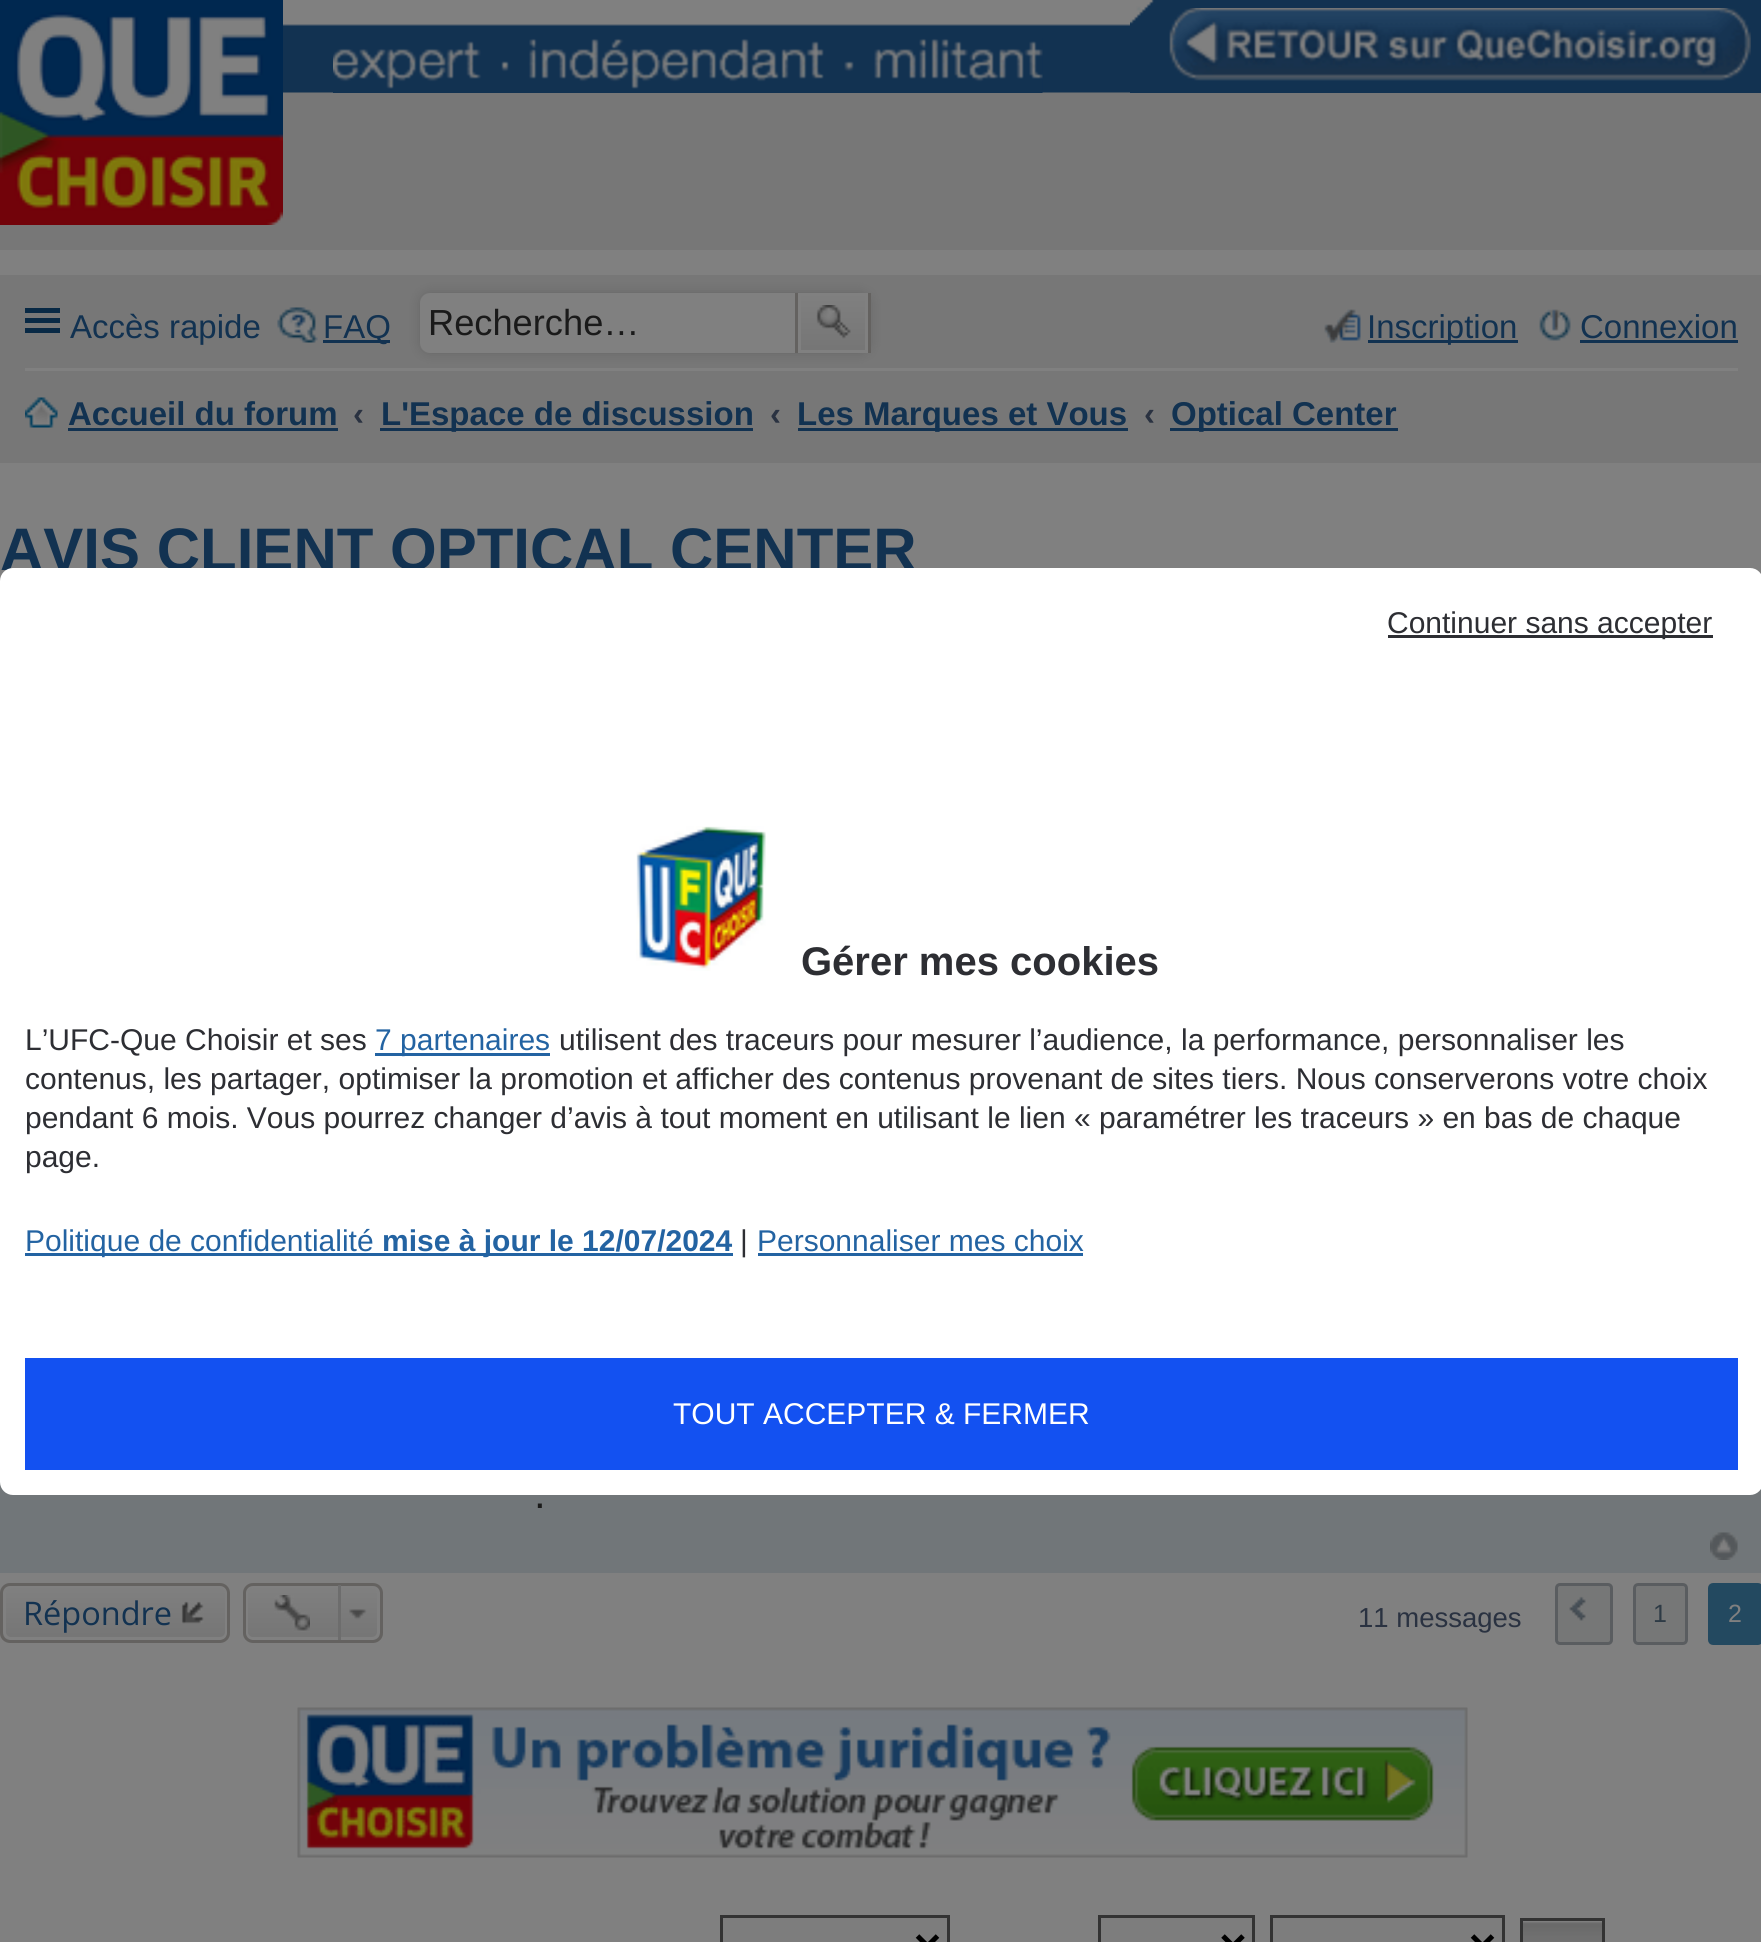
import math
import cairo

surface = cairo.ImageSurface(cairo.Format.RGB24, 1761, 1942)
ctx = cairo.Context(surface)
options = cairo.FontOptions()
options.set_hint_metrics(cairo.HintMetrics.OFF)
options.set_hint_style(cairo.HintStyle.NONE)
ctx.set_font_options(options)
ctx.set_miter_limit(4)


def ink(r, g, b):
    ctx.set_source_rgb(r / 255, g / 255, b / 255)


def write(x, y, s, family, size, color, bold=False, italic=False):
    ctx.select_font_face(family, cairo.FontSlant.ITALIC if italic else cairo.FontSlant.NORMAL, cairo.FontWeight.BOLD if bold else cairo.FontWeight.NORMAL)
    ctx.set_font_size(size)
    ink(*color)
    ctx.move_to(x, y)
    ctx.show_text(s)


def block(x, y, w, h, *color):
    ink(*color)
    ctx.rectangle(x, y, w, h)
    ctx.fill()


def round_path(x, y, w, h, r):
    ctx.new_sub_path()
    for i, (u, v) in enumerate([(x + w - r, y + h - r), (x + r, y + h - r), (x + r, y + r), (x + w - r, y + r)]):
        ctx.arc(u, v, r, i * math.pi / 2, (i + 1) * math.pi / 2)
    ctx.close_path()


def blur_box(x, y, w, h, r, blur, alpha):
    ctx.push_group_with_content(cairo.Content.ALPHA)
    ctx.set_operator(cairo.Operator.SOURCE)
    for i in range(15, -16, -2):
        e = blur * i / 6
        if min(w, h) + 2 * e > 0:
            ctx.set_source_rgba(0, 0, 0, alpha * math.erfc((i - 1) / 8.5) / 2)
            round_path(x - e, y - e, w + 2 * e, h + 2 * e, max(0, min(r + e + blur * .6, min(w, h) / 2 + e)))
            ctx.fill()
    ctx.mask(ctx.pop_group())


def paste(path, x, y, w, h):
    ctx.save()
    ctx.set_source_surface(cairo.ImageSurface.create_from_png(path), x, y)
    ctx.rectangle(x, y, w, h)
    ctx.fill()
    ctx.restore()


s1 = dict(family="Liberation Sans", size=33, color=(18, 50, 81))
s2 = dict(family="Liberation Sans", size=36.25, color=(26, 26, 26))
s3 = dict(family="Liberation Sans", size=33, color=(18, 50, 81), bold=True)
s4 = dict(family="Liberation Sans", size=33, color=(42, 50, 65), bold=True)
s5 = dict(family="Liberation Sans", size=60, color=(18, 50, 81), bold=True)
s6 = dict(family="Liberation Sans", size=42, color=(26, 26, 26))
s7 = dict(family="Open Sans", size=32.5, color=(18, 50, 81))
s8 = dict(family="Liberation Sans", size=27.5, color=(42, 50, 65))
s9 = dict(family="Liberation Sans", size=25, color=(46, 59, 70))
s10 = dict(family="Liberation Sans", size=25, color=(128, 128, 128))
s11 = dict(family="Liberation Sans", size=30, color=(45, 46, 51))
s12 = dict(family="Liberation Sans", size=30, color=(255, 255, 255))
s13 = dict(family="Liberation Sans", size=40, color=(45, 46, 51), bold=True)
s14 = dict(family="Liberation Sans", size=30, color=(35, 99, 162))
s15 = dict(family="Liberation Sans", size=30, color=(35, 99, 162), bold=True)

ink(128, 128, 128)
ctx.paint()
block(0, 92, 1761, 158, 119, 119, 119)
paste("pic1.png", 283, 0, 847, 93)
paste("pic2.png", 0, 0, 283, 225)
paste("pic3.png", 333, 38, 710, 55)
block(1130, 0, 631, 93, 18, 50, 81)
paste("pic4.png", 1130, 0, 24, 24)
paste("pic5.png", 1169, 8, 582, 73)
block(0, 275, 1761, 188, 119, 119, 119)
block(25, 308, 35, 5, 8, 41, 69)
block(25, 318, 35, 5, 8, 41, 69)
block(25, 328, 35, 5, 8, 41, 69)
write(70, 338, "Accès rapide", **s1)
paste("pic6.png", 277, 307, 41, 36)
block(323, 340, 67, 3, 18, 50, 81)
write(323, 338, "FAQ", **s1)
block(25, 368, 1713, 3, 128, 128, 128)
ink(102, 102, 102)
blur_box(420, 293, 450, 60, 10, 6, 1)
ink(128, 128, 128)
ctx.new_path()
ctx.move_to(430, 293)
ctx.line_to(795, 293)
ctx.line_to(795, 353)
ctx.line_to(430, 353)
ctx.curve_to(424.5, 353, 420, 348.5, 420, 343)
ctx.line_to(420, 303)
ctx.curve_to(420, 297.5, 424.5, 293, 430, 293)
ctx.close_path()
ctx.fill()
write(428, 335, "Recherche…", **s2)
gradient = cairo.LinearGradient(833, 293, 833, 353)
gradient.add_color_stop_rgba(0, 0.502, 0.502, 0.502, 1)
gradient.add_color_stop_rgba(1, 0.459, 0.459, 0.459, 1)
ctx.set_source(gradient)
ctx.rectangle(801, 296, 64, 54)
ctx.fill()
ctx.rectangle(799.5, 294.5, 67, 57)
ink(128, 128, 128)
ctx.set_line_width(3)
ctx.stroke()
block(868, 293, 3, 60, 100, 98, 96)
block(795, 293, 3, 60, 100, 98, 96)
paste("pic7.png", 816, 305, 35, 34)
paste("pic8.png", 1324, 309, 37, 34)
block(1368, 340, 150, 3, 18, 50, 81)
write(1367, 338, "Inscription", **s1)
paste("pic9.png", 1539, 309, 32, 32)
write(1580, 338, "Connexion", **s1)
block(1580, 340, 158, 3, 18, 50, 81)
paste("pic10.png", 25, 397, 33, 31)
write(68, 425, "Accueil du forum", **s3)
block(68, 428, 270, 3, 18, 50, 81)
write(353, 425, "‹", **s4)
block(380, 428, 373, 3, 18, 50, 81)
write(381, 425, "L'Espace de discussion", **s3)
write(770, 425, "‹", **s4)
block(798, 428, 330, 3, 18, 50, 81)
write(797, 425, "Les Marques et Vous", **s3)
write(1144, 425, "‹", **s4)
block(1170, 428, 228, 3, 18, 50, 81)
write(1171, 425, "Optical Center", **s3)
write(0, 570, "AVIS CLIENT OPTICAL CENTER", **s5)
block(0, 1482, 1761, 91, 113, 118, 121)
write(534, 1508, ".", **s6)
paste("pic11.png", 1710, 1532, 28, 28)
ctx.save()
round_path(0, 1583, 230, 60, 10)
ctx.clip()
gradient = cairo.LinearGradient(115, 1585, 115, 1640)
gradient.add_color_stop_rgba(0, 0.502, 0.502, 0.502, 1)
gradient.add_color_stop_rgba(1, 0.459, 0.459, 0.459, 1)
ctx.set_source(gradient)
ctx.rectangle(0, 1585, 230, 55)
ctx.fill()
ctx.restore()
round_path(4.5, 1586.5, 222, 52, 6.5)
ink(128, 128, 128)
ctx.stroke()
round_path(1.5, 1584.5, 227, 57, 8.5)
ink(100, 98, 96)
ctx.stroke()
write(23, 1625, "Répondre", **s7)
paste("pic12.png", 181, 1601, 23, 23)
ctx.save()
round_path(243, 1583, 140, 60, 10)
ctx.clip()
gradient = cairo.LinearGradient(313, 1585, 313, 1640)
gradient.add_color_stop_rgba(0, 0.502, 0.502, 0.502, 1)
gradient.add_color_stop_rgba(1, 0.459, 0.459, 0.459, 1)
ctx.set_source(gradient)
ctx.rectangle(243, 1585, 140, 55)
ctx.fill()
ctx.restore()
round_path(246.5, 1586.5, 132, 52, 6.5)
ink(128, 128, 128)
ctx.stroke()
round_path(244.5, 1584.5, 137, 57, 8.5)
ink(100, 98, 96)
ctx.stroke()
paste("pic13.png", 274, 1595, 36, 37)
paste("pic14.png", 349, 1609, 18, 11)
block(338, 1585, 3, 55, 109, 109, 109)
write(1358, 1627, "11 messages", **s8)
ink(118, 119, 119)
round_path(1555, 1583, 58, 62, 5)
ctx.fill()
paste("pic15.png", 1569, 1596, 17, 25)
round_path(1556.5, 1584.5, 55, 59, 3.5)
ink(90, 93, 96)
ctx.stroke()
ink(118, 119, 119)
round_path(1634.5, 1584.5, 52, 59, 3.5)
ctx.fill_preserve()
ink(90, 93, 96)
ctx.stroke()
write(1653, 1622, "1", **s9)
ink(35, 73, 96)
round_path(1709.5, 1584.5, 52, 59, 3.5)
ctx.fill_preserve()
ctx.stroke()
write(1728, 1622, "2", **s10)
paste("pic16.png", 297, 1707, 1171, 151)
ink(125, 125, 125)
ctx.rectangle(721.5, 1916.5, 227, 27)
ctx.fill_preserve()
ink(51, 51, 51)
ctx.stroke()
ctx.new_path()
ctx.move_to(917.5, 1936)
ctx.line_to(927.5, 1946)
ctx.line_to(937.5, 1936)
ink(0, 0, 0)
ctx.set_line_width(5)
ctx.stroke()
ink(125, 125, 125)
ctx.rectangle(1099.5, 1916.5, 154, 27)
ctx.fill_preserve()
ink(51, 51, 51)
ctx.set_line_width(3)
ctx.stroke()
ctx.new_path()
ctx.move_to(1223, 1936)
ctx.line_to(1233, 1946)
ctx.line_to(1243, 1936)
ink(0, 0, 0)
ctx.set_line_width(5)
ctx.stroke()
ink(125, 125, 125)
ctx.rectangle(1271.5, 1916.5, 232, 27)
ctx.fill_preserve()
ink(51, 51, 51)
ctx.set_line_width(3)
ctx.stroke()
ctx.new_path()
ctx.move_to(1472.5, 1936)
ctx.line_to(1482.5, 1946)
ctx.line_to(1492.5, 1936)
ink(0, 0, 0)
ctx.set_line_width(5)
ctx.stroke()
paste("pic17.png", 1523, 1921, 79, 21)
ctx.rectangle(1521.5, 1919.5, 82, 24)
ink(51, 51, 51)
ctx.set_line_width(3)
ctx.stroke()
ink(255, 255, 255)
round_path(0, 568, 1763, 927, 13)
ctx.fill()
block(1388, 635, 325, 3, 45, 46, 51)
write(1387, 633, "Continuer sans accepter", **s11)
block(25, 1358, 1713, 112, 19, 81, 241)
write(673, 1424, "TOUT ACCEPTER & FERMER", **s12)
paste("pic18.png", 636, 826, 130, 145)
write(801, 975, "Gérer mes cookies", **s13)
write(25, 1050, "L’UFC-Que Choisir et ses", **s11)
block(375, 1053, 175, 3, 35, 99, 162)
write(375, 1050, "7 partenaires", **s14)
write(559, 1050, "utilisent des traceurs pour mesurer l’audience, la performance, personnaliser les", **s11)
write(25, 1089, "contenus, les partager, optimiser la promotion et afficher des contenus provenant de sites tiers. Nous conserverons votre choix", **s11)
write(25, 1128, "pendant 6 mois. Vous pourrez changer d’avis à tout moment en utilisant le lien « paramétrer les traceurs » en bas de chaque", **s11)
write(25, 1167, "page.", **s11)
block(25, 1253, 708, 3, 35, 99, 162)
write(25, 1251, "Politique de confidentialité", **s14)
write(382, 1251, "mise à jour le 12/07/2024", **s15)
write(740, 1251, "|", **s11)
write(757, 1251, "Personnaliser mes choix", **s14)
block(758, 1253, 325, 3, 35, 99, 162)
surface.write_to_png("screenshot.png")
